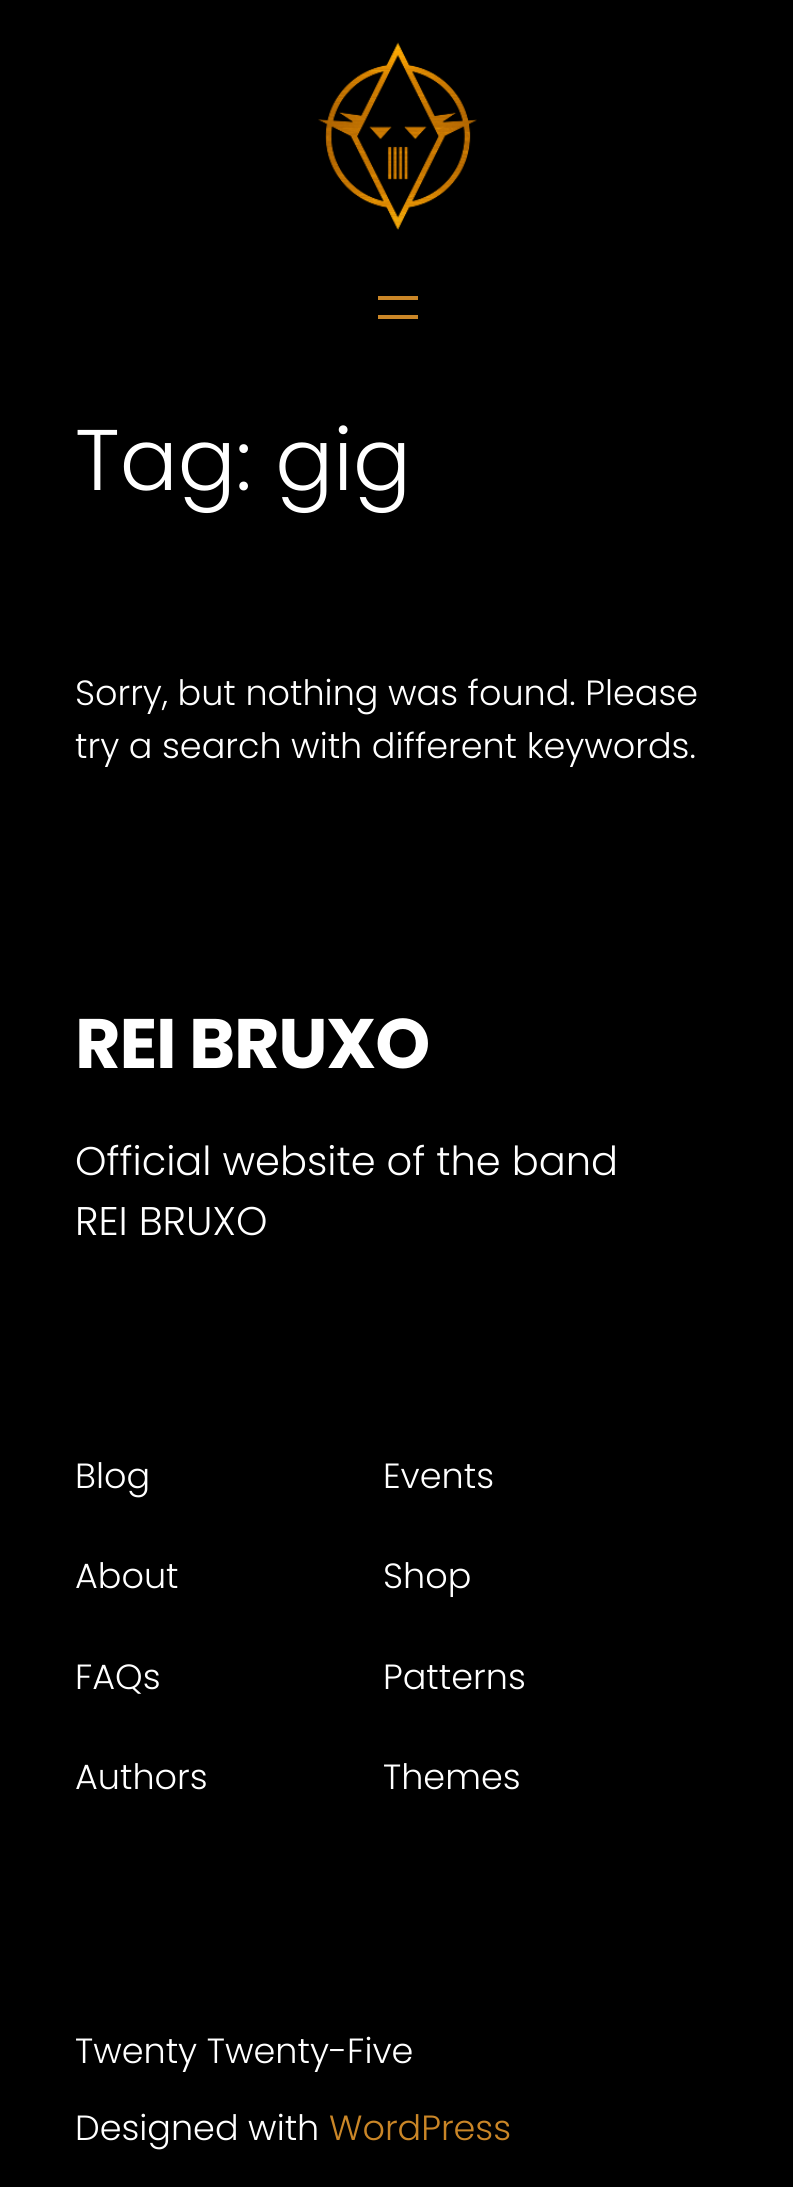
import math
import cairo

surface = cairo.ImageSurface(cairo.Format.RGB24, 793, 2187)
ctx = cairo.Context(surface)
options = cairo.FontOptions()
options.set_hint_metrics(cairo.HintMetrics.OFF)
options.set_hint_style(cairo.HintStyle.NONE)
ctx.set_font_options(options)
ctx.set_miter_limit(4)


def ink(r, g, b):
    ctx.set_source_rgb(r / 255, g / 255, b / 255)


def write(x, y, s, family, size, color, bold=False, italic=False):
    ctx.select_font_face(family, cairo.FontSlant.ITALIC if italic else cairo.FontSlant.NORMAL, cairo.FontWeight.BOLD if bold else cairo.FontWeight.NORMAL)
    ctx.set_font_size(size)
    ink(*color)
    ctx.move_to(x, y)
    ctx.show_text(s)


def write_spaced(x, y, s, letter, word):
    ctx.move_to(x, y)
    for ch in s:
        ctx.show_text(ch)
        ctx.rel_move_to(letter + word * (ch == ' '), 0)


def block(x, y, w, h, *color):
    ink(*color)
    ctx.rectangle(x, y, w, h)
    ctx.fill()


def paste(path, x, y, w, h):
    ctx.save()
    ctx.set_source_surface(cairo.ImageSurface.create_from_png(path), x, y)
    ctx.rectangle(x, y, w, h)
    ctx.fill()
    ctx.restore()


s1 = dict(family="Poppins Light", size=86, color=(255, 255, 255))
s2 = dict(family="Poppins Light", size=35, color=(255, 255, 255))
s3 = dict(family="Poppins Light", size=40, color=(255, 255, 255))
s4 = dict(family="Poppins Light", size=35, color=(202, 134, 39))

ink(0, 0, 0)
ctx.paint()
paste("pic1.png", 318, 42, 159, 188)
block(378, 296, 40, 4, 202, 134, 39)
block(378, 315, 40, 4, 202, 134, 39)
write(75, 490, "Tag: gig", **s1)
write(75, 705, "Sorry, but nothing was found. Please", **s2)
write(75, 758, "try a search with different keywords.", **s2)
ctx.select_font_face("Poppins", cairo.FontSlant.NORMAL, cairo.FontWeight.BOLD)
ctx.set_font_size(70)
write_spaced(75, 1068, "REI BRUXO", -1.25, 0)
write(75, 1175, "Official website of the band", **s3)
write(75, 1235, "REI BRUXO", **s3)
write(75, 1488, "Blog", **s2)
write(75, 1588, "About", **s2)
write(75, 1689, "FAQs", **s2)
write(75, 1789, "Authors", **s2)
write(383, 1488, "Events", **s2)
write(383, 1588, "Shop", **s2)
write(383, 1689, "Patterns", **s2)
write(383, 1789, "Themes", **s2)
write(75, 2063, "Twenty Twenty-Five", **s2)
write(75, 2140, "Designed with", **s2)
write(329, 2140, "WordPress", **s4)
surface.write_to_png("screenshot.png")
